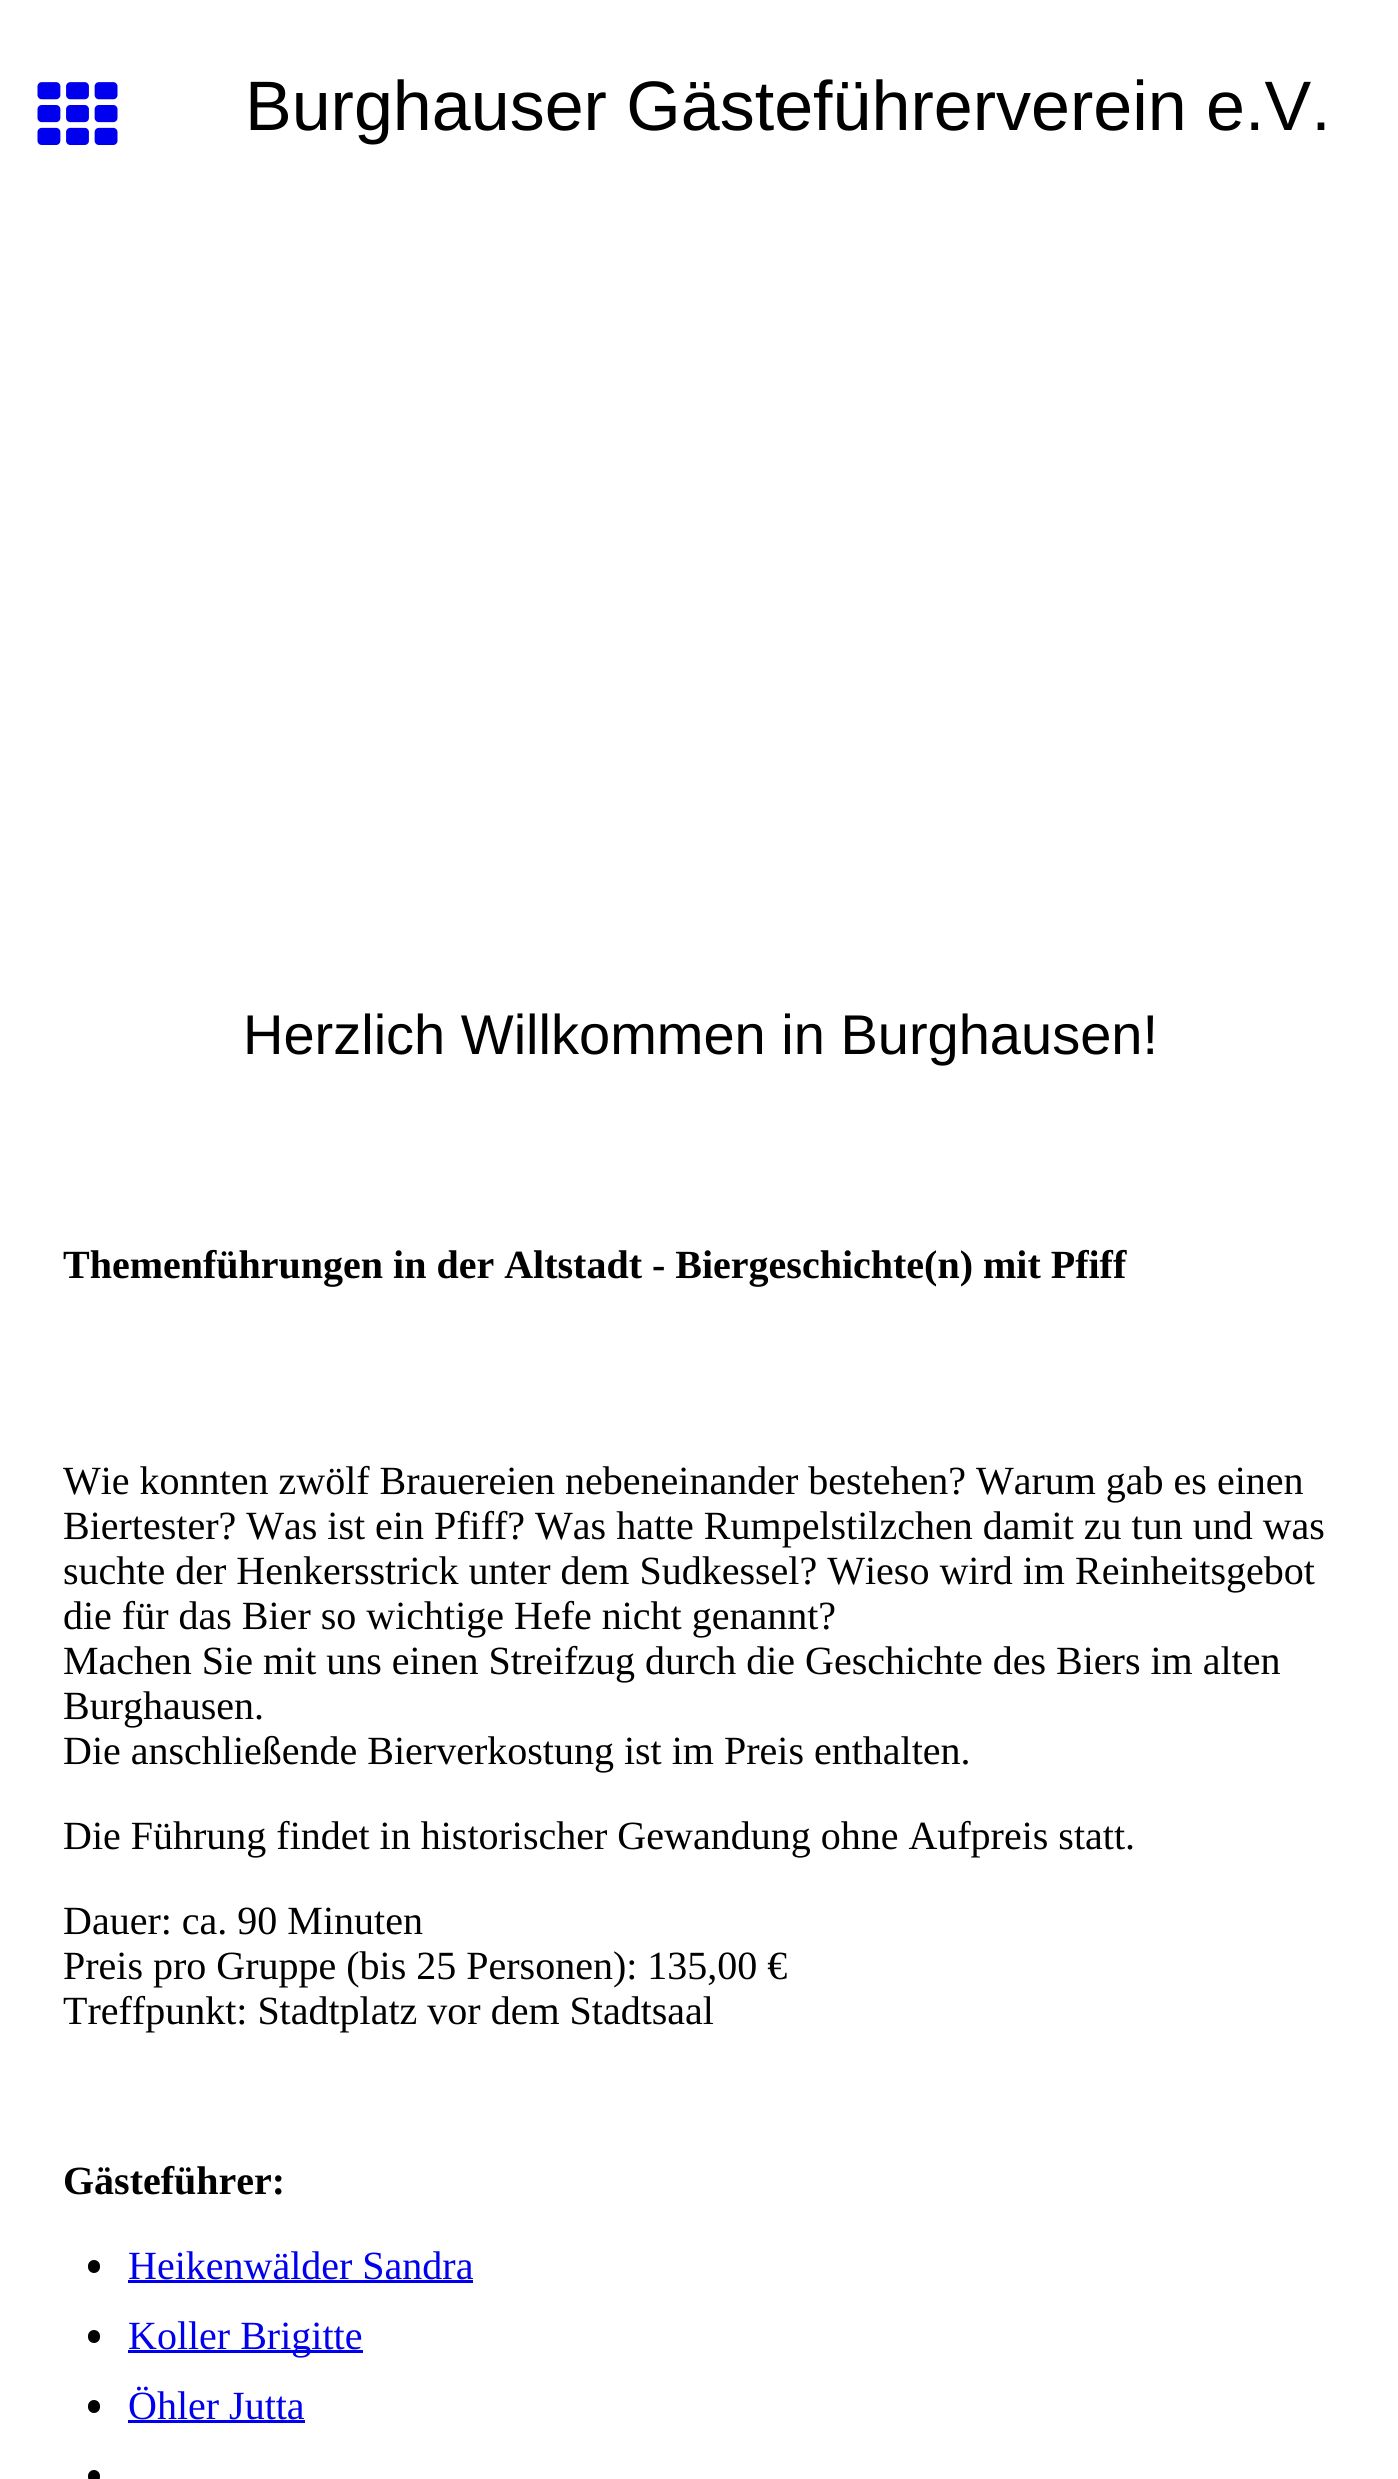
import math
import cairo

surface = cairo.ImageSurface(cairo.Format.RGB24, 1398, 2479)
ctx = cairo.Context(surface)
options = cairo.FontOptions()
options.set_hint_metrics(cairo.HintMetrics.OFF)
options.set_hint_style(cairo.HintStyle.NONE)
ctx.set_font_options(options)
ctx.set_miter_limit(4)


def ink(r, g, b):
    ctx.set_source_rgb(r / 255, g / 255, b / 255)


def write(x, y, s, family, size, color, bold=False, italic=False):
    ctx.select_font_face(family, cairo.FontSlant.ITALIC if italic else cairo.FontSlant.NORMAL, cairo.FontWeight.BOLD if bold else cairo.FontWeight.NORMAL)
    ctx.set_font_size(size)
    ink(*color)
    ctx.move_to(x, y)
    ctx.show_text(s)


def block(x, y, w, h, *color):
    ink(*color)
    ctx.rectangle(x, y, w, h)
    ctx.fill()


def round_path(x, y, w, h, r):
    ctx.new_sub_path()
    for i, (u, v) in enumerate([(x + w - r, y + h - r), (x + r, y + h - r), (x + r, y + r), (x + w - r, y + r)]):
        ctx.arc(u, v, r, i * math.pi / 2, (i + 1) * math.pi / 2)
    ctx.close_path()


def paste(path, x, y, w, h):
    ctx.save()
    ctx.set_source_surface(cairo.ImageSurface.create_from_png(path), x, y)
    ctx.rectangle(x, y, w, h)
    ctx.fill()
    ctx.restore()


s1 = dict(family="Liberation Sans", size=70, color=(0, 0, 0))
s2 = dict(family="Liberation Sans", size=56, color=(0, 0, 0))
s3 = dict(family="Liberation Serif", size=40, color=(0, 0, 0), bold=True)
s4 = dict(family="Liberation Serif", size=40, color=(0, 0, 0))
s5 = dict(family="Liberation Serif", size=40, color=(0, 0, 238))

ink(255, 255, 255)
ctx.paint()
paste("pic1.png", 37, 82, 81, 63)
write(245, 130, "Burghauser Gästeführerverein e.V.", **s1)
write(243, 1054, "Herzlich Willkommen in Burghausen!", **s2)
write(63, 1278, "Themenführungen in der Altstadt - Biergeschichte(n) mit Pfiff", **s3)
write(63, 1494, "Wie konnten zwölf Brauereien nebeneinander bestehen? Warum gab es einen", **s4)
write(63, 1539, "Biertester? Was ist ein Pfiff? Was hatte Rumpelstilzchen damit zu tun und was", **s4)
write(63, 1584, "suchte der Henkersstrick unter dem Sudkessel? Wieso wird im Reinheitsgebot", **s4)
write(63, 1629, "die für das Bier so wichtige Hefe nicht genannt?", **s4)
write(63, 1674, "Machen Sie mit uns einen Streifzug durch die Geschichte des Biers im alten", **s4)
write(63, 1719, "Burghausen.", **s4)
write(63, 1764, "Die anschließende Bierverkostung ist im Preis enthalten.", **s4)
write(63, 1849, "Die Führung findet in historischer Gewandung ohne Aufpreis statt.", **s4)
write(63, 1934, "Dauer: ca. 90 Minuten", **s4)
write(63, 1979, "Preis pro Gruppe (bis 25 Personen): 135,00 €", **s4)
write(63, 2024, "Treffpunkt: Stadtplatz vor dem Stadtsaal", **s4)
write(63, 2194, "Gästeführer:", **s3)
round_path(88, 2260, 12, 13, 6)
ctx.fill()
write(128, 2279, "Heikenwälder Sandra", **s5)
block(128, 2280, 345, 3, 0, 0, 238)
ink(0, 0, 0)
round_path(88, 2330, 12, 13, 6)
ctx.fill()
block(128, 2350, 235, 3, 0, 0, 238)
write(128, 2349, "Koller Brigitte", **s5)
ink(0, 0, 0)
round_path(88, 2400, 12, 13, 6)
ctx.fill()
write(128, 2419, "Öhler Jutta", **s5)
block(128, 2420, 177, 3, 0, 0, 238)
ink(0, 0, 0)
round_path(88, 2470, 12, 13, 6)
ctx.fill()
surface.write_to_png("screenshot.png")
